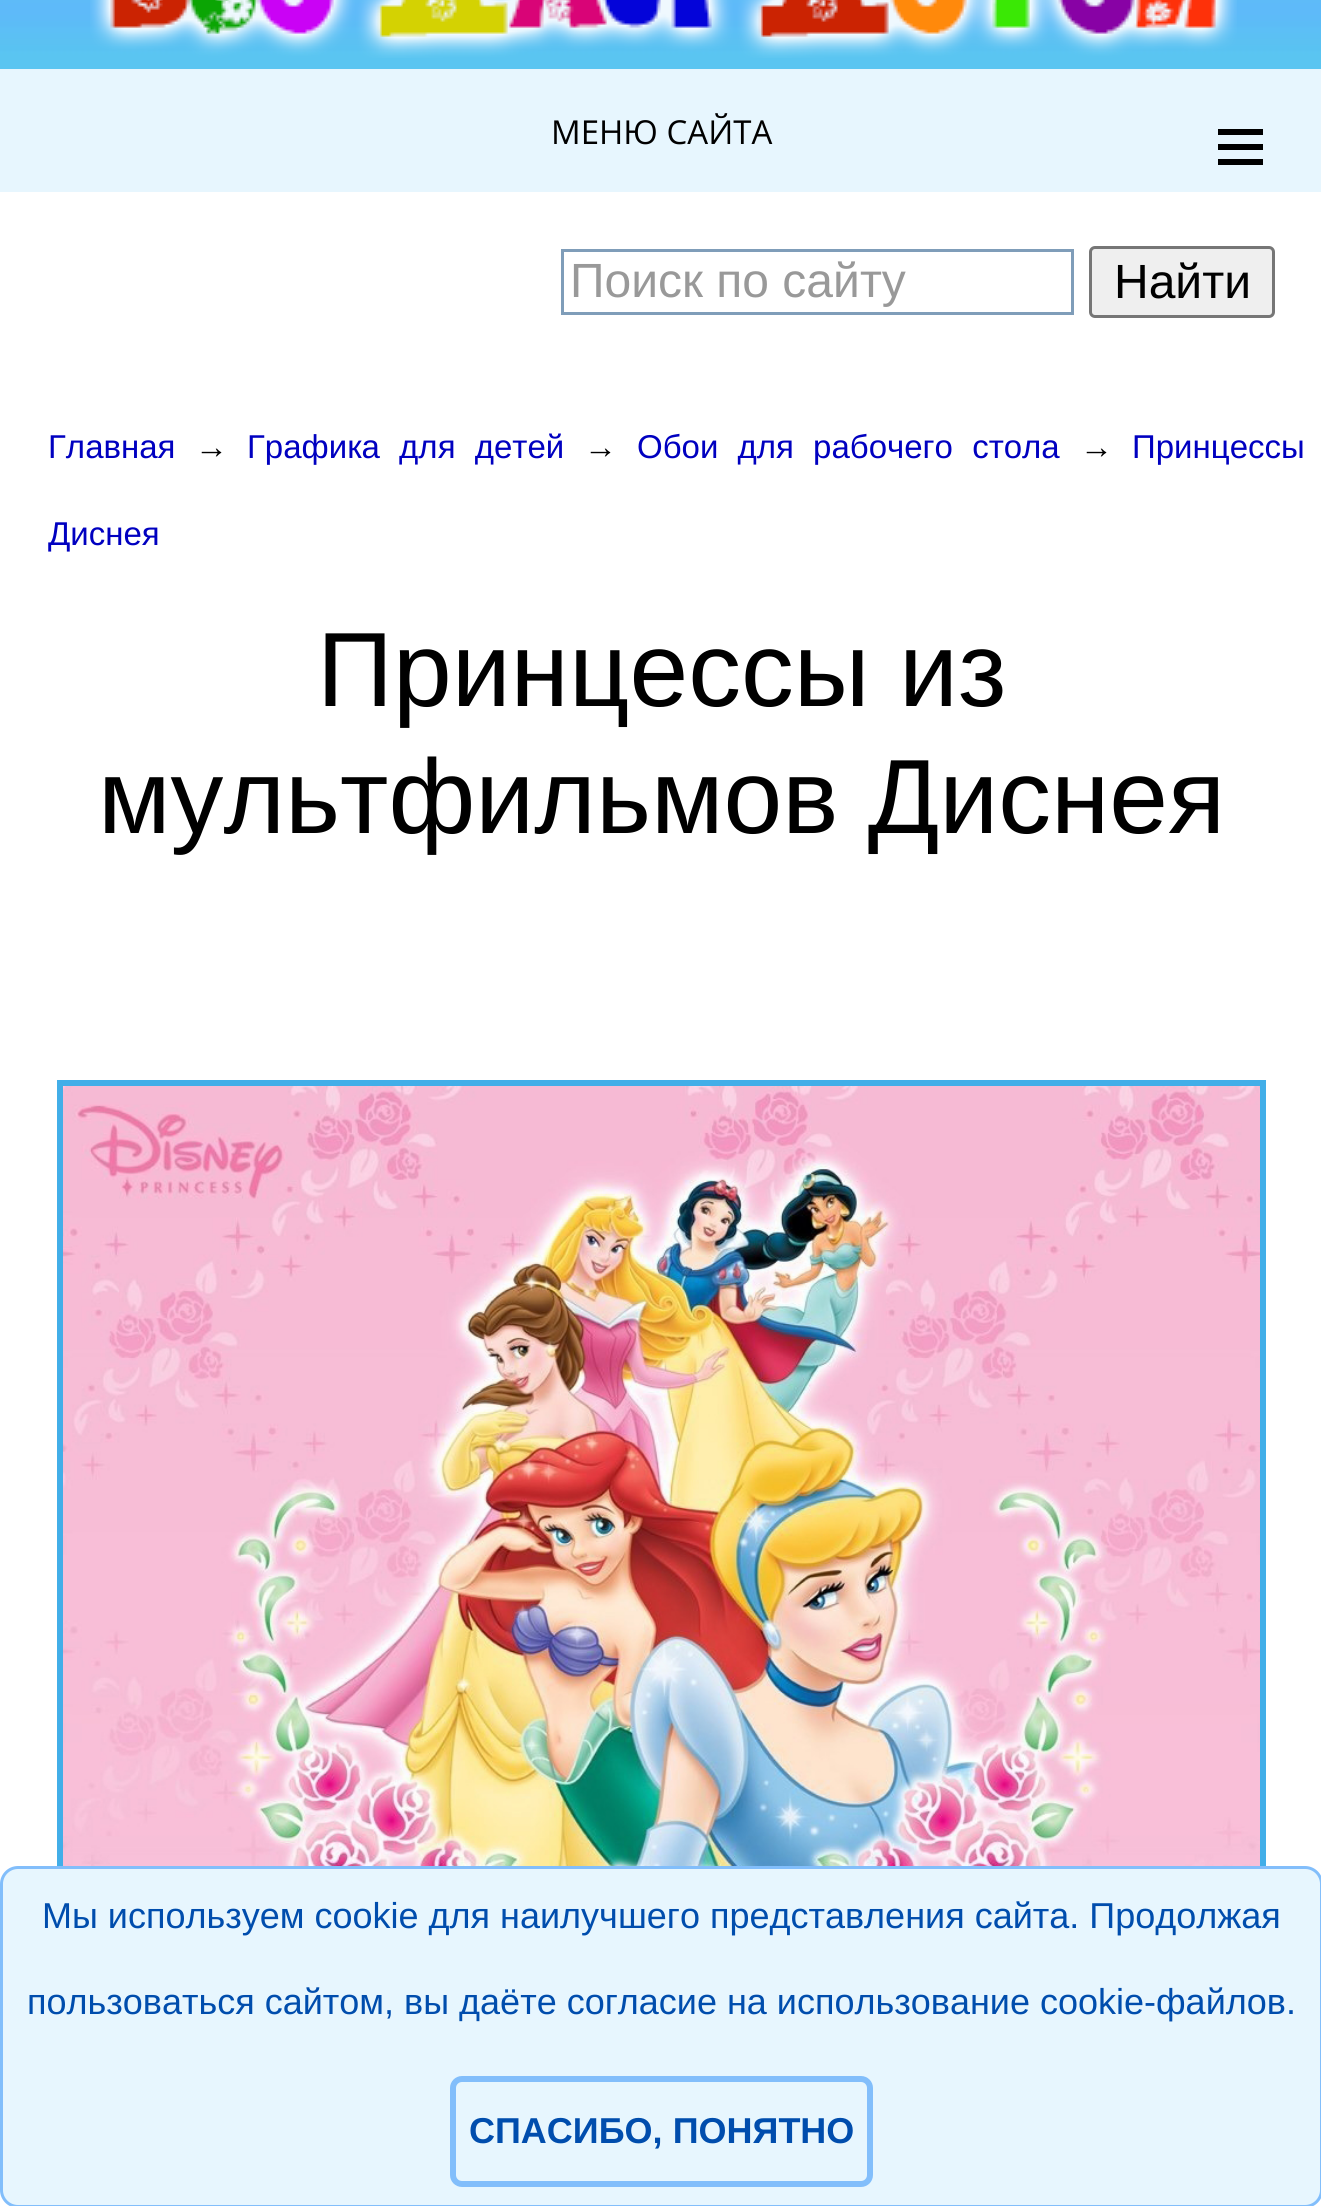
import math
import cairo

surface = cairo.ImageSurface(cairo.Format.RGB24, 1321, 2206)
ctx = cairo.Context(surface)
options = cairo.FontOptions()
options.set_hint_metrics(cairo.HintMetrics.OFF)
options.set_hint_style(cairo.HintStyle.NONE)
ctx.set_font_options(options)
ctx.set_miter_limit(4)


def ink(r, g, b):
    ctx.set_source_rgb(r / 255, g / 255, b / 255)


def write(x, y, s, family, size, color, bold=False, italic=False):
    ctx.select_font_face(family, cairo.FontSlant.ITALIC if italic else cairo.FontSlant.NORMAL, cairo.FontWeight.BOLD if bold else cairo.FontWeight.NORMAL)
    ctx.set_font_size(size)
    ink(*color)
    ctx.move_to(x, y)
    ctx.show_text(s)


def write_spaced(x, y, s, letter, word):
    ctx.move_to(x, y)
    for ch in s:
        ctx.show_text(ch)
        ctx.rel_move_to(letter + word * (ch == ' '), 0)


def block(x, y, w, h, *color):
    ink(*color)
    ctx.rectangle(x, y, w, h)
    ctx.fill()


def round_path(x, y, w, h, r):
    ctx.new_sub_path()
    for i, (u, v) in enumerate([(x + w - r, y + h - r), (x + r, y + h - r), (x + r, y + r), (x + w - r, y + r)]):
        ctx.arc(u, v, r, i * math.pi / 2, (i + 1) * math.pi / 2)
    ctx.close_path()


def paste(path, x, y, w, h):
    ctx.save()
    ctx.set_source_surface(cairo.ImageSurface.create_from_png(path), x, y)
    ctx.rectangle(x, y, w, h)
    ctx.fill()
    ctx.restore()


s1 = dict(family="Open Sans", size=33, color=(0, 0, 0))
s2 = dict(family="Liberation Sans", size=48, color=(153, 153, 153))
s3 = dict(family="Liberation Sans", size=48, color=(0, 0, 0))
s4 = dict(family="Liberation Sans", size=33, color=(0, 0, 192))
s5 = dict(family="Liberation Sans", size=33, color=(0, 0, 0))
s6 = dict(family="Liberation Sans", size=105.6, color=(0, 0, 0))
s7 = dict(family="Liberation Sans", size=36, color=(0, 77, 173))
s8 = dict(family="Liberation Sans", size=36, color=(0, 77, 173), bold=True)

ink(255, 255, 255)
ctx.paint()
paste("pic1.png", 0, 0, 1321, 69)
paste("pic2.png", 90, 0, 1147, 58)
block(0, 69, 1321, 123, 231, 246, 254)
write(551, 144, "МЕНЮ САЙТА", **s1)
block(1218, 129, 45, 6, 0, 0, 0)
block(1218, 144, 45, 6, 0, 0, 0)
block(1218, 159, 45, 6, 0, 0, 0)
ctx.rectangle(562.5, 250.5, 510, 63)
ink(127, 157, 185)
ctx.set_line_width(3)
ctx.stroke()
write(570, 297, "Поиск по сайту", **s2)
ink(239, 239, 239)
round_path(1090.5, 247.5, 183, 69, 4.5)
ctx.fill_preserve()
ink(118, 118, 118)
ctx.stroke()
write(1114, 298, "Найти", **s3)
write(48, 458, "Главная", **s4)
write(195, 458, "→", **s5)
ink(0, 0, 192)
write_spaced(247, 458, "Графика для детей", 0, 10)
write(584, 458, "→", **s5)
ink(0, 0, 192)
write_spaced(637, 458, "Обои для рабочего стола", 0, 10)
write(1080, 458, "→", **s5)
write(1132, 458, "Принцессы", **s4)
write(48, 545, "Диснея", **s4)
write(317, 706, "Принцессы из", **s6)
write(98, 833, "мультфильмов Диснея", **s6)
ctx.rectangle(60, 1083, 1203, 906)
ink(66, 174, 232)
ctx.set_line_width(6)
ctx.stroke()
paste("pic3.png", 63, 1086, 1197, 780)
ink(231, 246, 254)
round_path(1.5, 1867.5, 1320, 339, 16.5)
ctx.fill_preserve()
ink(130, 190, 251)
ctx.set_line_width(3)
ctx.stroke()
write(42, 1928, "Мы используем cookie для наилучшего представления сайта. Продолжая", **s7)
write(27, 2014, "пользоваться сайтом, вы даёте согласие на использование cookie-файлов.", **s7)
round_path(453, 2079, 417, 105, 9)
ink(130, 190, 251)
ctx.set_line_width(6)
ctx.stroke()
write(469, 2143, "СПАСИБО, ПОНЯТНО", **s8)
surface.write_to_png("screenshot.png")
